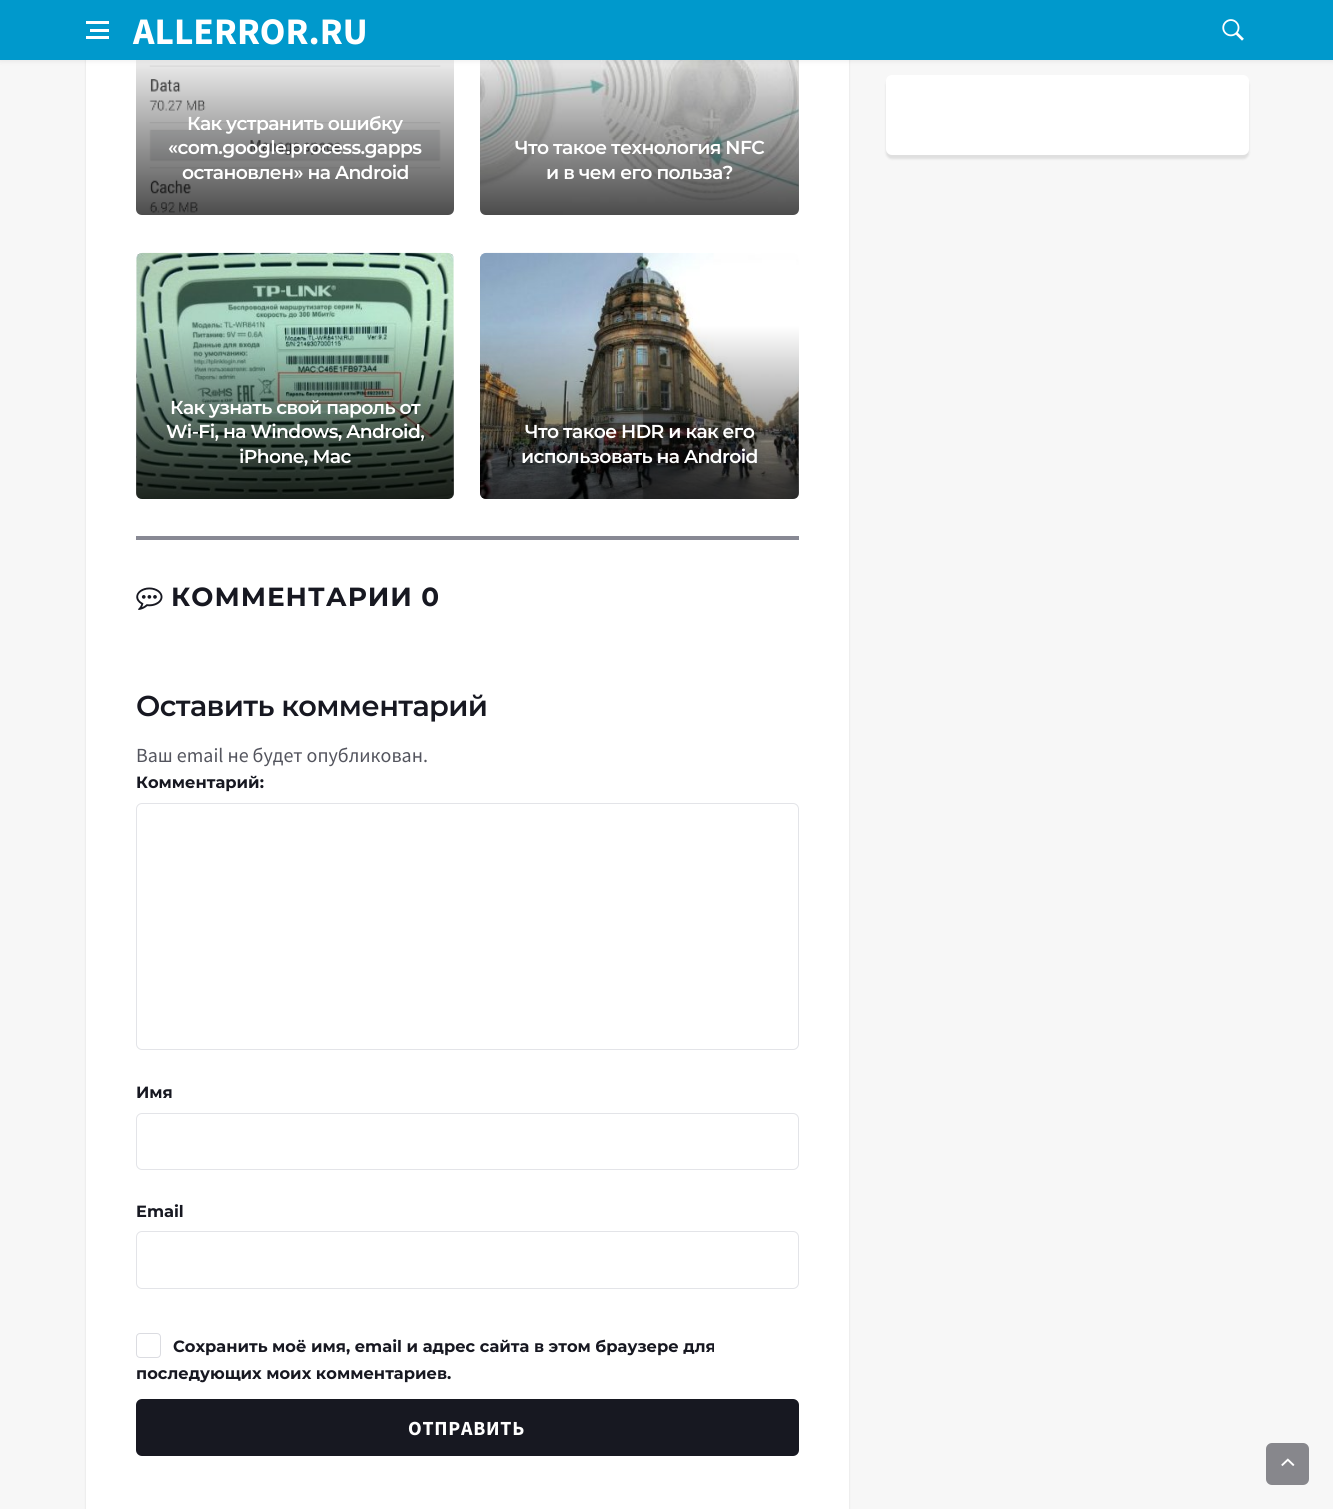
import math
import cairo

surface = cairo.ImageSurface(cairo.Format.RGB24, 1333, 1509)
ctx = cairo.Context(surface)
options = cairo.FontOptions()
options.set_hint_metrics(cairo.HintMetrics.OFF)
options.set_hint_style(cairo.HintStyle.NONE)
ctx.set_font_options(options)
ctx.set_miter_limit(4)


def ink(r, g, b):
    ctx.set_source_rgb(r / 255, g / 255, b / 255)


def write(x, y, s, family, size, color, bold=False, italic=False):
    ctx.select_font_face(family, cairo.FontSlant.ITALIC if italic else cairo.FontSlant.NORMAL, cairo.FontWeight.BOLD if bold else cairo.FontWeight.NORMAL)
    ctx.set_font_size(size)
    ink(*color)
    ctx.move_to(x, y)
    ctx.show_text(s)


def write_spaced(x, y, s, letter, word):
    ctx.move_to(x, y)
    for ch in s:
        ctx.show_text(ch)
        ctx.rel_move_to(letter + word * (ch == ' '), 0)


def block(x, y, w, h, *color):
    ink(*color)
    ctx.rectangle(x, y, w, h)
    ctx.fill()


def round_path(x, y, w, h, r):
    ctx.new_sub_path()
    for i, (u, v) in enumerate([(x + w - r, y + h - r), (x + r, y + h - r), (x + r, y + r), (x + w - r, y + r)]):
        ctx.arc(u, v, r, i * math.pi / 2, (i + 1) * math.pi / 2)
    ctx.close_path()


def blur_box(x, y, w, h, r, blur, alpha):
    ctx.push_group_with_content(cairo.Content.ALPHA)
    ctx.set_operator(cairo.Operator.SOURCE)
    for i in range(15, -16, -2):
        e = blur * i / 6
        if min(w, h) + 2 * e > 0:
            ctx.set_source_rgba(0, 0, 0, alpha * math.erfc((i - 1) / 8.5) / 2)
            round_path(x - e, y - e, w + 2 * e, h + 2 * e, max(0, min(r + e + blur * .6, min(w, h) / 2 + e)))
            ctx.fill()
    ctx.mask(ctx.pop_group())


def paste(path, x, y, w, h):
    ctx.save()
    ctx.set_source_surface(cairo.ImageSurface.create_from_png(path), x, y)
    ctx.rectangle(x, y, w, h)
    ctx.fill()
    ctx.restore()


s1 = dict(family="Source Sans Pro", size=37.5, color=(255, 255, 255), bold=True)
s2 = dict(family="Source Sans Pro", size=20, color=(84, 85, 94))
s3 = dict(family="Montserrat", size=16.25, color=(23, 24, 33), bold=True)

ink(247, 247, 247)
ctx.paint()
ink(0, 0, 0)
blur_box(86, -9, 763, 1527, 6, 1, 0.1)
block(86, 60, 763, 1449, 255, 255, 255)
paste("pic2.png", 149, 60, 292, 153)
gradient = cairo.LinearGradient(295, 215, 295, 43)
gradient.add_color_stop_rgba(0, 0, 0, 0, 0.7)
gradient.add_color_stop_rgba(1, 0, 0, 0, 0)
ctx.set_source(gradient)
ctx.new_path()
ctx.move_to(136, 43)
ctx.line_to(454, 43)
ctx.line_to(454, 209)
ctx.curve_to(454, 212.5, 451.5, 215, 448, 215)
ctx.line_to(142, 215)
ctx.curve_to(138.5, 215, 136, 212.5, 136, 209)
ctx.close_path()
ctx.fill()
paste("pic3.png", 480, 60, 319, 155)
gradient = cairo.LinearGradient(639, 215, 639, 43)
gradient.add_color_stop_rgba(0, 0, 0, 0, 0.7)
gradient.add_color_stop_rgba(1, 0, 0, 0, 0)
ctx.set_source(gradient)
ctx.new_path()
ctx.move_to(480, 43)
ctx.line_to(799, 43)
ctx.line_to(799, 209)
ctx.curve_to(799, 212.5, 796.5, 215, 793, 215)
ctx.line_to(486, 215)
ctx.curve_to(482.5, 215, 480, 212.5, 480, 209)
ctx.close_path()
ctx.fill()
ink(0, 0, 0)
blur_box(0, 0, 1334, 60, 0, 3, 0.1)
block(0, 0, 1333, 60, 0, 153, 204)
block(90, 29, 19, 3, 255, 255, 255)
block(86, 21, 23, 3, 255, 255, 255)
block(86, 36, 23, 3, 255, 255, 255)
write(133, 44, "ALLERROR.RU", **s1)
paste("pic1.png", 1222, 19, 22, 22)
ctx.select_font_face("Montserrat SemiBold")
ctx.set_font_size(18.75)
write_spaced(187, 130, "Как устранить ошибку", -0.6, 0)
write_spaced(168, 154, "«com.google.process.gapps", -0.6, 0)
write_spaced(182, 179, "остановлен» на Android", -0.6, 0)
write_spaced(515, 154, "Что такое технология NFC", -0.6, 0)
write_spaced(546, 179, "и в чем его польза?", -0.6, 0)
paste("pic4.png", 136, 252, 318, 247)
gradient = cairo.LinearGradient(295, 499, 295, 326)
gradient.add_color_stop_rgba(0, 0, 0, 0, 0.7)
gradient.add_color_stop_rgba(1, 0, 0, 0, 0)
ctx.set_source(gradient)
ctx.new_path()
ctx.move_to(136, 326)
ctx.line_to(454, 326)
ctx.line_to(454, 493)
ctx.curve_to(454, 496.5, 451.5, 499, 448, 499)
ctx.line_to(142, 499)
ctx.curve_to(138.5, 499, 136, 496.5, 136, 493)
ctx.close_path()
ctx.fill()
ink(255, 255, 255)
write_spaced(170, 414, "Как узнать свой пароль от", -0.6, 0)
write_spaced(166, 438, "Wi-Fi, на Windows, Android,", -0.6, 0)
write_spaced(239, 463, "iPhone, Mac", -0.6, 0)
paste("pic5.png", 480, 252, 319, 247)
gradient = cairo.LinearGradient(639, 499, 639, 326)
gradient.add_color_stop_rgba(0, 0, 0, 0, 0.7)
gradient.add_color_stop_rgba(1, 0, 0, 0, 0)
ctx.set_source(gradient)
ctx.new_path()
ctx.move_to(480, 326)
ctx.line_to(799, 326)
ctx.line_to(799, 493)
ctx.curve_to(799, 496.5, 796.5, 499, 793, 499)
ctx.line_to(486, 499)
ctx.curve_to(482.5, 499, 480, 496.5, 480, 493)
ctx.close_path()
ctx.fill()
ink(255, 255, 255)
write_spaced(525, 438, "Что такое HDR и как его", -0.6, 0)
write_spaced(521, 463, "использовать на Android", -0.6, 0)
block(136, 536, 663, 4, 136, 137, 148)
paste("pic6.png", 136, 587, 27, 23)
ctx.select_font_face("Montserrat", cairo.FontSlant.NORMAL, cairo.FontWeight.BOLD)
ctx.set_font_size(26.25)
ink(23, 24, 33)
write_spaced(171, 606, "КОММЕНТАРИИ 0", 1, 0)
ctx.select_font_face("Montserrat SemiBold")
ctx.set_font_size(28.75)
write_spaced(136, 716, "Оставить комментарий", -0.6, 0)
write(136, 762, "Ваш email не будет опубликован.", **s2)
write(136, 788, "Комментарий:", **s3)
round_path(136.5, 803.5, 662, 246, 5.5)
ink(227, 228, 232)
ctx.set_line_width(1)
ctx.stroke()
write(136, 1098, "Имя", **s3)
round_path(136.5, 1113.5, 662, 56, 5.5)
ink(227, 228, 232)
ctx.stroke()
write(136, 1217, "Email", **s3)
round_path(136.5, 1231.5, 662, 57, 5.5)
ink(227, 228, 232)
ctx.stroke()
round_path(136.5, 1333.5, 24, 24, 3.5)
ink(219, 220, 225)
ctx.stroke()
write(173, 1352, "Сохранить моё имя, email и адрес сайта в этом браузере для", **s3)
write(136, 1379, "последующих моих комментариев.", **s3)
round_path(136, 1399, 663, 57, 6)
ctx.fill()
ctx.select_font_face("Source Sans Pro", cairo.FontSlant.NORMAL, cairo.FontWeight.BOLD)
ctx.set_font_size(20)
ink(255, 255, 255)
write_spaced(408, 1435, "ОТПРАВИТЬ", 0.75, 0)
ink(0, 0, 0)
blur_box(886, 79, 363, 80, 6, 1, 0.1)
ink(255, 255, 255)
round_path(886, 75, 363, 80, 6)
ctx.fill()
ink(135, 135, 140)
round_path(1266, 1443, 43, 42, 6)
ctx.fill()
paste("pic7.png", 1281, 1458, 14, 8)
surface.write_to_png("screenshot.png")
